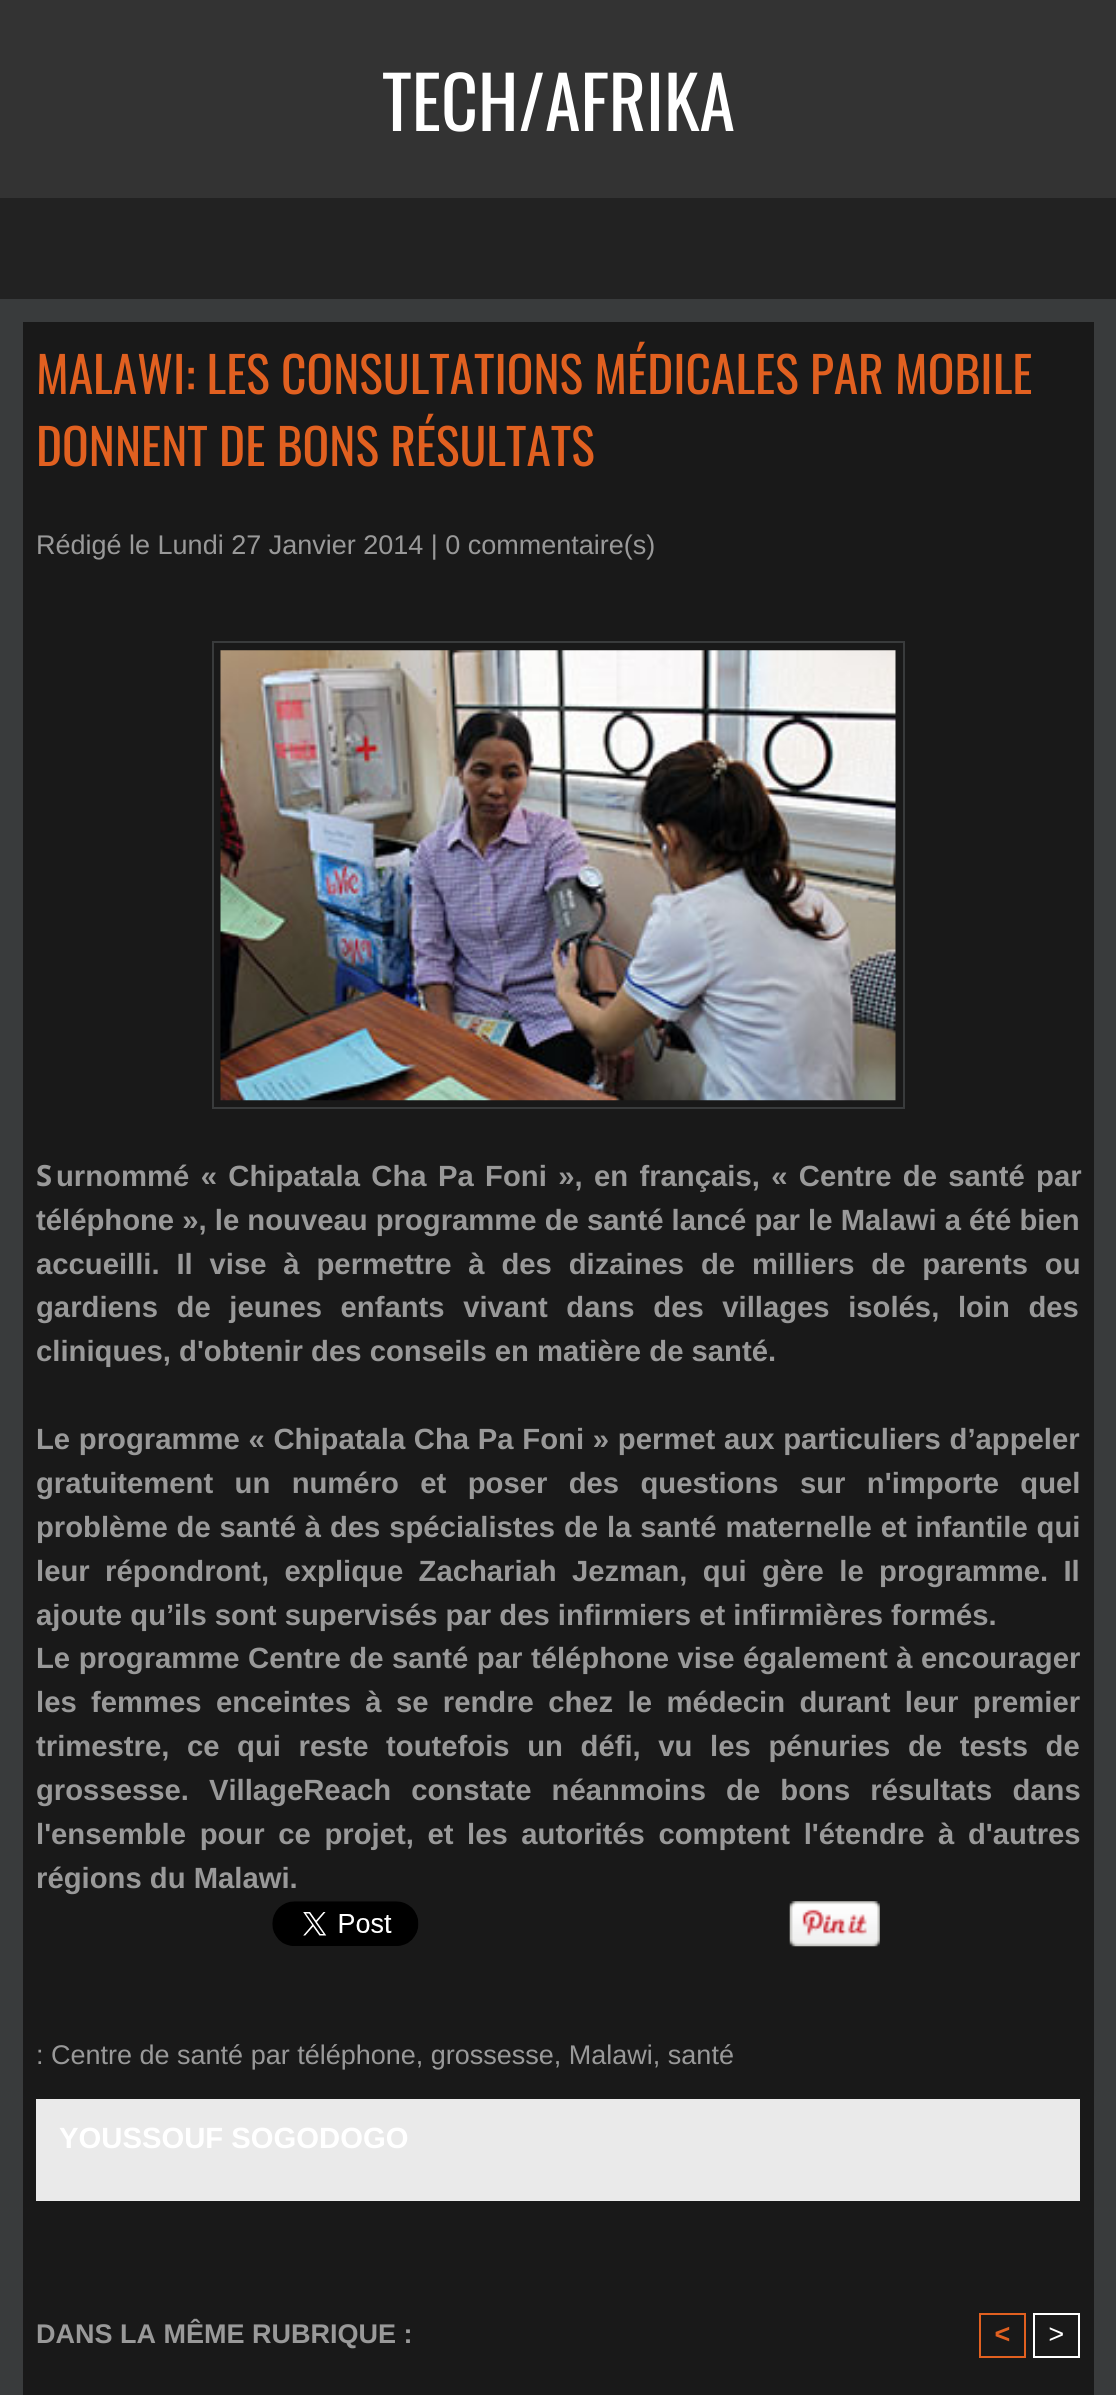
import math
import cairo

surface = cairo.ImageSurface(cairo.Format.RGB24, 1116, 2395)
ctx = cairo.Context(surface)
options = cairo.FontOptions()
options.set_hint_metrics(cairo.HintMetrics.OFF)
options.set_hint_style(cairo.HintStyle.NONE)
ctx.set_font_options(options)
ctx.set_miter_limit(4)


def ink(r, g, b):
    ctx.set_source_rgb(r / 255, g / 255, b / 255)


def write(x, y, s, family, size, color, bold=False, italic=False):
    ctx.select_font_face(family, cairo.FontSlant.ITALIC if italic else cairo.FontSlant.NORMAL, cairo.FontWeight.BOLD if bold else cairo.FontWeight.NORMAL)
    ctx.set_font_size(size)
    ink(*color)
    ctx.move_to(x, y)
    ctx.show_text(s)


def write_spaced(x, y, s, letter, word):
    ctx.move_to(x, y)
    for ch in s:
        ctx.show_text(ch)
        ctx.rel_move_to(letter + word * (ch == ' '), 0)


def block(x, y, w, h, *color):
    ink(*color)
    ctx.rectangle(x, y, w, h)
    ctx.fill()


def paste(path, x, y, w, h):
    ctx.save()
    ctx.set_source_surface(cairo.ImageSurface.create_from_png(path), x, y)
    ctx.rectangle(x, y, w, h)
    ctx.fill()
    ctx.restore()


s1 = dict(family="Oswald", size=72, color=(255, 255, 255))
s2 = dict(family="Oswald", size=49.5, color=(225, 96, 32))
s3 = dict(family="Liberation Sans", size=27, color=(153, 153, 153))
s4 = dict(family="Noto Sans", size=29.25, color=(153, 153, 153), bold=True)
s5 = dict(family="Liberation Sans", size=29.25, color=(153, 153, 153), bold=True)
s6 = dict(family="Liberation Sans", size=29.25, color=(255, 255, 255), bold=True)
s7 = dict(family="Liberation Sans", size=27, color=(153, 153, 153), bold=True)
s8 = dict(family="Liberation Sans", size=27, color=(225, 96, 32), bold=True, italic=True)
s9 = dict(family="Liberation Sans", size=27, color=(255, 255, 255), italic=True)

ink(34, 34, 34)
ctx.paint()
block(0, 0, 1116, 198, 51, 51, 51)
write(382, 131, "TECH/AFRIKA", **s1)
block(0, 299, 1116, 2096, 57, 59, 60)
block(23, 322, 1071, 2073, 25, 25, 25)
write(36, 394, "MALAWI: LES CONSULTATIONS MÉDICALES PAR MOBILE", **s2)
write(36, 466, "DONNENT DE BONS RÉSULTATS", **s2)
write(36, 554, "Rédigé le Lundi 27 Janvier 2014 | 0 commentaire(s)", **s3)
ctx.rectangle(213, 642, 691, 466)
ink(57, 59, 60)
ctx.stroke()
paste("pic1.png", 220, 650, 676, 451)
write(36, 1186, "S", **s4)
ctx.select_font_face("Liberation Sans", cairo.FontSlant.NORMAL, cairo.FontWeight.BOLD)
write_spaced(56, 1186, "urnommé « Chipatala Cha Pa Foni », en français, « Centre de santé par", 0, 3.25)
write(36, 1230, "téléphone », le nouveau programme de santé lancé par le Malawi a été bien", **s5)
write_spaced(36, 1274, "accueilli. Il vise à permettre à des dizaines de milliers de parents ou", 0, 8.75)
write_spaced(36, 1317, "gardiens de jeunes enfants vivant dans des villages isolés, loin des", 0, 10.5)
write(36, 1361, "cliniques, d'obtenir des conseils en matière de santé.", **s5)
write_spaced(36, 1449, "Le programme « Chipatala Cha Pa Foni » permet aux particuliers d’appeler", 0, 0.6)
write_spaced(36, 1493, "gratuitement un numéro et poser des questions sur n'importe quel", 0, 13.25)
write_spaced(36, 1537, "problème de santé à des spécialistes de la santé maternelle et infantile qui", 0, 0.75)
write_spaced(36, 1581, "leur répondront, explique Zachariah Jezman, qui gère le programme. Il", 0, 7.25)
write(36, 1625, "ajoute qu’ils sont supervisés par des infirmiers et infirmières formés.", **s5)
write_spaced(36, 1668, "Le programme Centre de santé par téléphone vise également à encourager", 0, 0.4)
write_spaced(36, 1712, "les femmes enceintes à se rendre chez le médecin durant leur premier", 0, 6.25)
write_spaced(36, 1756, "trimestre, ce qui reste toutefois un défi, vu les pénuries de tests de", 0, 9.5)
write_spaced(36, 1800, "grossesse. VillageReach constate néanmoins de bons résultats dans", 0, 12)
write_spaced(36, 1844, "l'ensemble pour ce projet, et les autorités comptent l'étendre à d'autres", 0, 5.5)
write(36, 1888, "régions du Malawi.", **s5)
paste("pic2.png", 272, 1901, 147, 45)
paste("pic3.png", 789, 1901, 91, 46)
write(36, 2064, ": Centre de santé par téléphone, grossesse, Malawi, santé", **s3)
block(36, 2099, 1044, 102, 234, 234, 234)
write(59, 2148, "YOUSSOUF SOGODOGO", **s6)
write(36, 2343, "DANS LA MÊME RUBRIQUE :", **s7)
ctx.rectangle(980, 2314, 45, 43)
ink(225, 96, 32)
ctx.stroke()
write(994, 2343, "<", **s8)
ctx.rectangle(1034, 2314, 45, 43)
ink(255, 255, 255)
ctx.stroke()
write(1048, 2343, ">", **s9)
surface.write_to_png("screenshot.png")
